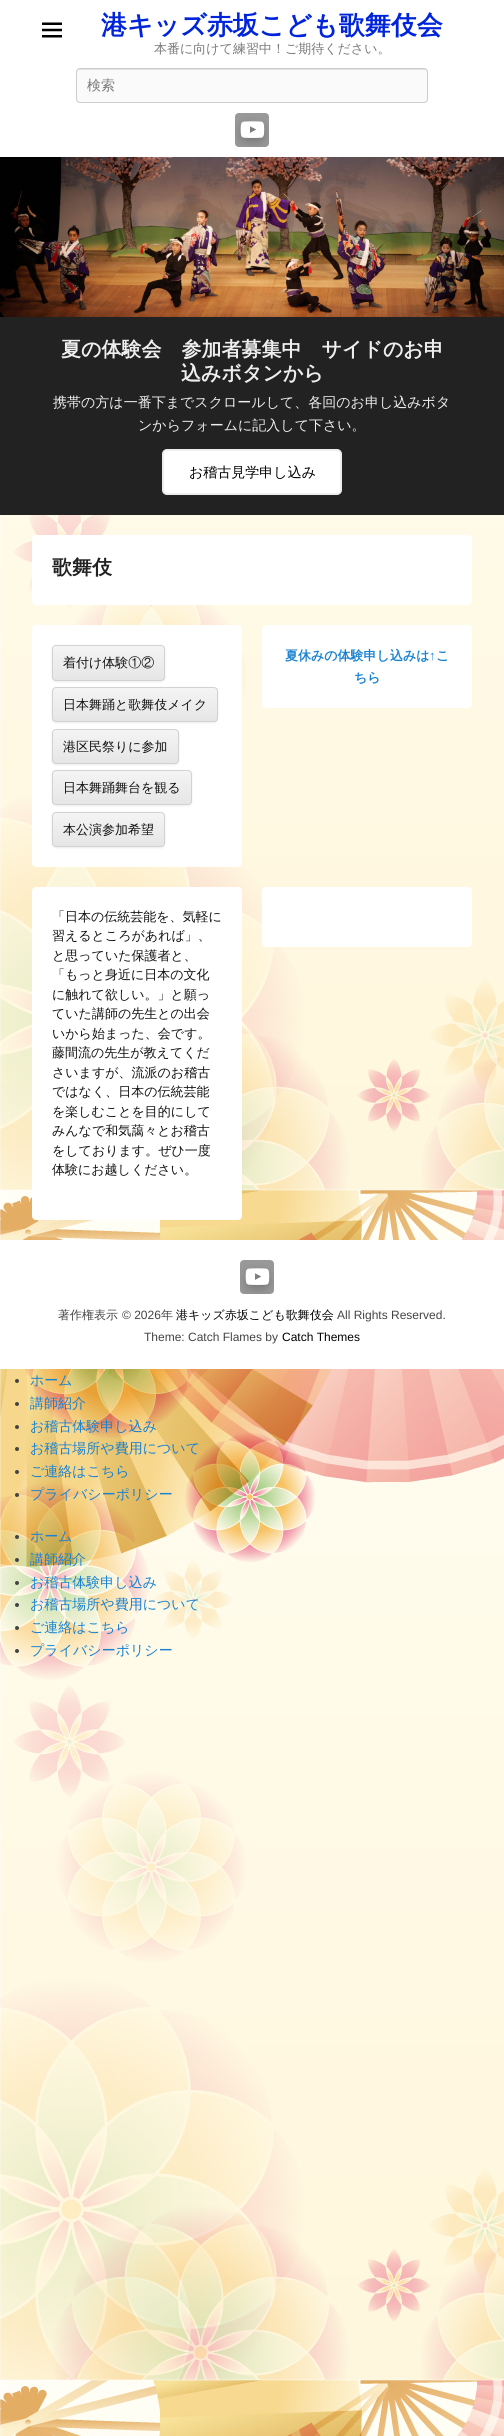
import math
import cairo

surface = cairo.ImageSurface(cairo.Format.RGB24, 504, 2436)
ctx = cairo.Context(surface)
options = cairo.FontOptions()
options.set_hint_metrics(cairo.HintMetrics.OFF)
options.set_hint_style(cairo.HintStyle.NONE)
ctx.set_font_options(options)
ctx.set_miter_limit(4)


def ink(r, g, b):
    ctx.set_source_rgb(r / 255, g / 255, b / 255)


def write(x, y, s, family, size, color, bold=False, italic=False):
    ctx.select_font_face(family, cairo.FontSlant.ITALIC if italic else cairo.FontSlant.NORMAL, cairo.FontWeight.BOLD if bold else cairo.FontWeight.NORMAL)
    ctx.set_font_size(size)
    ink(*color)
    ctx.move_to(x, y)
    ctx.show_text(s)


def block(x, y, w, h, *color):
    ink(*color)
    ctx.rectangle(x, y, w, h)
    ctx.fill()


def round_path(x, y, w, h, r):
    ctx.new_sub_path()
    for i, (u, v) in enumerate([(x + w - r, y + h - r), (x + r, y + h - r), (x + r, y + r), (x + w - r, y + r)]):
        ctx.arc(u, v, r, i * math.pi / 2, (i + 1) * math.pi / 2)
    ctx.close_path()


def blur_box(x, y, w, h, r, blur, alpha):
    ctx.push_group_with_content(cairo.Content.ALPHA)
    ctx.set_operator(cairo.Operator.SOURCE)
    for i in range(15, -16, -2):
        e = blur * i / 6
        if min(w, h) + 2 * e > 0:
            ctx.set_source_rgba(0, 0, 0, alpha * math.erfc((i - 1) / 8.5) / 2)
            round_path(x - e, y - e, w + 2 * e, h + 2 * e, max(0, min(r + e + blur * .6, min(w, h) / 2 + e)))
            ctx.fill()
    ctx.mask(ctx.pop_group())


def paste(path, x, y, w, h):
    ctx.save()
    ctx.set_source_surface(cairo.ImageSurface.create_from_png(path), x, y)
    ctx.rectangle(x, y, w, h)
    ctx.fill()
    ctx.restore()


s1 = dict(family="WenQuanYi Zen Hei", size=26, color=(0, 36, 219), bold=True)
s2 = dict(family="WenQuanYi Zen Hei Medium", size=13, color=(122, 122, 122))
s3 = dict(family="WenQuanYi Zen Hei Medium", size=14, color=(122, 122, 122))
s4 = dict(family="WenQuanYi Zen Hei", size=20, color=(238, 238, 238), bold=True)
s5 = dict(family="WenQuanYi Zen Hei Medium", size=14, color=(238, 238, 238))
s6 = dict(family="WenQuanYi Zen Hei Medium", size=14, color=(0, 0, 0))
s7 = dict(family="WenQuanYi Zen Hei", size=20, color=(34, 34, 34), bold=True)
s8 = dict(family="WenQuanYi Zen Hei Medium", size=13, color=(17, 17, 17))
s9 = dict(family="WenQuanYi Zen Hei", size=13, color=(25, 130, 209), bold=True)
s10 = dict(family="Liberation Sans", size=13, color=(25, 130, 209), bold=True)
s11 = dict(family="WenQuanYi Zen Hei Medium", size=12, color=(68, 68, 68))
s12 = dict(family="Liberation Sans", size=12, color=(68, 68, 68))
s13 = dict(family="WenQuanYi Zen Hei Medium", size=12, color=(0, 0, 0))
s14 = dict(family="Liberation Sans", size=12, color=(0, 0, 0))
s15 = dict(family="WenQuanYi Zen Hei Medium", size=14, color=(25, 130, 209))

ink(255, 255, 255)
ctx.paint()
paste("pic1.png", 0, 515, 504, 1921)
paste("pic2.png", 42, 22, 20, 16)
write(101, 34, "港キッズ赤坂こども歌舞伎会", **s1)
write(154, 53, "本番に向けて練習中！ご期待ください。", **s2)
ink(250, 250, 250)
round_path(76, 68, 352, 35, 4)
ctx.fill()
ink(225, 225, 225)
ctx.new_path()
ctx.move_to(80, 70)
ctx.line_to(424, 70)
ctx.curve_to(426, 70, 427, 71, 427, 73)
ctx.curve_to(427, 71, 426, 69, 424, 69)
ctx.line_to(80, 69)
ctx.line_to(78, 70)
ctx.line_to(77, 73)
ctx.curve_to(77, 71, 78, 70, 80, 70)
ctx.close_path()
ctx.fill()
round_path(76.5, 68.5, 351, 34, 3.5)
ink(204, 204, 204)
ctx.set_line_width(1)
ctx.stroke()
write(87, 90, "検索", **s3)
paste("pic3.png", 235, 113, 34, 34)
paste("pic4.png", 0, 157, 504, 160)
block(0, 317, 504, 198, 34, 34, 34)
write(61, 356, "夏の体験会　参加者募集中　サイドのお申", **s4)
write(181, 380, "込みボタンから", **s4)
write(53, 407, "携帯の方は一番下までスクロールして、各回のお申し込みボタ", **s5)
write(138, 430, "ンからフォームに記入して下さい。", **s5)
ink(255, 255, 255)
round_path(163, 450, 178, 44, 4)
ctx.fill_preserve()
ink(238, 238, 238)
ctx.set_line_width(2)
ctx.stroke()
write(189, 477, "お稽古見学申し込み", **s6)
ink(255, 255, 255)
round_path(32, 535, 440, 70, 4)
ctx.fill()
write(52, 574, "歌舞伎", **s7)
ink(255, 255, 255)
round_path(32, 625, 210, 242, 4)
ctx.fill()
ink(64, 64, 64)
blur_box(52, 646, 113, 36, 4, 1, 0.1)
ctx.save()
round_path(52, 645, 113, 36, 4)
ctx.clip()
gradient = cairo.LinearGradient(109, 646, 109, 680)
gradient.add_color_stop_rgba(0, 0.957, 0.957, 0.957, 1)
gradient.add_color_stop_rgba(1, 0.902, 0.902, 0.902, 1)
ctx.set_source(gradient)
ctx.rectangle(52, 646, 113, 34)
ctx.fill()
ctx.restore()
round_path(52.5, 645.5, 112, 35, 3.5)
ink(210, 210, 210)
ctx.set_line_width(1)
ctx.stroke()
write(63, 667, "着付け体験①②", **s8)
ink(64, 64, 64)
blur_box(52, 688, 166, 35, 4, 1, 0.1)
ctx.save()
round_path(52, 687, 166, 35, 4)
ctx.clip()
gradient = cairo.LinearGradient(135, 688, 135, 721)
gradient.add_color_stop_rgba(0, 0.957, 0.957, 0.957, 1)
gradient.add_color_stop_rgba(1, 0.902, 0.902, 0.902, 1)
ctx.set_source(gradient)
ctx.rectangle(52, 688, 166, 33)
ctx.fill()
ctx.restore()
round_path(52.5, 687.5, 165, 34, 3.5)
ink(210, 210, 210)
ctx.stroke()
write(63, 709, "日本舞踊と歌舞伎メイク", **s8)
ink(64, 64, 64)
blur_box(52, 730, 127, 35, 4, 1, 0.1)
ctx.save()
round_path(52, 729, 127, 35, 4)
ctx.clip()
gradient = cairo.LinearGradient(116, 730, 116, 763)
gradient.add_color_stop_rgba(0, 0.957, 0.957, 0.957, 1)
gradient.add_color_stop_rgba(1, 0.902, 0.902, 0.902, 1)
ctx.set_source(gradient)
ctx.rectangle(52, 730, 127, 33)
ctx.fill()
ctx.restore()
round_path(52.5, 729.5, 126, 34, 3.5)
ink(210, 210, 210)
ctx.stroke()
write(63, 751, "港区民祭りに参加", **s8)
ink(64, 64, 64)
blur_box(52, 771, 140, 35, 4, 1, 0.1)
ctx.save()
round_path(52, 770, 140, 35, 4)
ctx.clip()
gradient = cairo.LinearGradient(122, 771, 122, 804)
gradient.add_color_stop_rgba(0, 0.957, 0.957, 0.957, 1)
gradient.add_color_stop_rgba(1, 0.902, 0.902, 0.902, 1)
ctx.set_source(gradient)
ctx.rectangle(52, 771, 140, 33)
ctx.fill()
ctx.restore()
round_path(52.5, 770.5, 139, 34, 3.5)
ink(210, 210, 210)
ctx.stroke()
write(63, 792, "日本舞踊舞台を観る", **s8)
ink(64, 64, 64)
blur_box(52, 813, 113, 35, 4, 1, 0.1)
ctx.save()
round_path(52, 812, 113, 35, 4)
ctx.clip()
gradient = cairo.LinearGradient(109, 813, 109, 846)
gradient.add_color_stop_rgba(0, 0.957, 0.957, 0.957, 1)
gradient.add_color_stop_rgba(1, 0.902, 0.902, 0.902, 1)
ctx.set_source(gradient)
ctx.rectangle(52, 813, 113, 33)
ctx.fill()
ctx.restore()
round_path(52.5, 812.5, 112, 34, 3.5)
ink(210, 210, 210)
ctx.stroke()
write(63, 834, "本公演参加希望", **s8)
ink(255, 255, 255)
round_path(262, 625, 210, 83, 4)
ctx.fill()
write(285, 660, "夏休みの体験申し込みは", **s9)
write(429, 660, "↑", **s10)
write(436, 660, "こ", **s9)
write(354, 682, "ちら", **s9)
ink(255, 255, 255)
round_path(32, 887, 210, 333, 4)
ctx.fill()
write(52, 921, "「日本の伝統芸能を、気軽に", **s8)
write(52, 940, "習えるところがあれば」、", **s8)
write(52, 960, "と思っていた保護者と、", **s8)
write(52, 979, "「もっと身近に日本の文化", **s8)
write(52, 999, "に触れて欲しい。」と願っ", **s8)
write(52, 1018, "ていた講師の先生との出会", **s8)
write(52, 1038, "いから始まった、会です。", **s8)
write(52, 1057, "藤間流の先生が教えてくだ", **s8)
write(52, 1077, "さいますが、流派のお稽古", **s8)
write(52, 1096, "ではなく、日本の伝統芸能", **s8)
write(52, 1116, "を楽しむことを目的にして", **s8)
write(52, 1135, "みんなで和気藹々とお稽古", **s8)
write(52, 1155, "をしております。ぜひ一度", **s8)
write(52, 1174, "体験にお越しください。", **s8)
ink(255, 255, 255)
round_path(262, 887, 210, 60, 4)
ctx.fill()
block(0, 1240, 504, 129, 255, 255, 255)
paste("pic3.png", 240, 1260, 34, 34)
write(58, 1319, "著作権表示", **s11)
write(122, 1319, "© 2026", **s12)
write(161, 1319, "年", **s11)
write(176, 1319, "港キッズ赤坂こども歌舞伎会", **s13)
write(337, 1319, "All Rights Reserved.", **s12)
write(144, 1341, "Theme: Catch Flames by", **s12)
write(282, 1341, "Catch Themes", **s14)
ink(68, 68, 68)
ctx.new_path()
ctx.arc(17, 1381, 2, 0, 2 * math.pi)
ctx.fill()
write(30, 1385, "ホーム", **s15)
ink(68, 68, 68)
ctx.new_path()
ctx.arc(17, 1404, 2, 0, 2 * math.pi)
ctx.fill()
write(30, 1408, "講師紹介", **s15)
ink(68, 68, 68)
ctx.new_path()
ctx.arc(17, 1427, 2, 0, 2 * math.pi)
ctx.fill()
write(30, 1431, "お稽古体験申し込み", **s15)
ink(68, 68, 68)
ctx.new_path()
ctx.arc(17, 1449, 2, 0, 2 * math.pi)
ctx.fill()
write(30, 1453, "お稽古場所や費用について", **s15)
ink(68, 68, 68)
ctx.new_path()
ctx.arc(17, 1472, 2, 0, 2 * math.pi)
ctx.fill()
write(30, 1476, "ご連絡はこちら", **s15)
ink(68, 68, 68)
ctx.new_path()
ctx.arc(17, 1495, 2, 0, 2 * math.pi)
ctx.fill()
write(30, 1499, "プライバシーポリシー", **s15)
ink(68, 68, 68)
ctx.new_path()
ctx.arc(17, 1537, 2, 0, 2 * math.pi)
ctx.fill()
write(30, 1541, "ホーム", **s15)
ink(68, 68, 68)
ctx.new_path()
ctx.arc(17, 1560, 2, 0, 2 * math.pi)
ctx.fill()
write(30, 1564, "講師紹介", **s15)
ink(68, 68, 68)
ctx.new_path()
ctx.arc(17, 1583, 2, 0, 2 * math.pi)
ctx.fill()
write(30, 1587, "お稽古体験申し込み", **s15)
ink(68, 68, 68)
ctx.new_path()
ctx.arc(17, 1605, 2, 0, 2 * math.pi)
ctx.fill()
write(30, 1609, "お稽古場所や費用について", **s15)
ink(68, 68, 68)
ctx.new_path()
ctx.arc(17, 1628, 2, 0, 2 * math.pi)
ctx.fill()
write(30, 1632, "ご連絡はこちら", **s15)
ink(68, 68, 68)
ctx.new_path()
ctx.arc(17, 1651, 2, 0, 2 * math.pi)
ctx.fill()
write(30, 1655, "プライバシーポリシー", **s15)
surface.write_to_png("screenshot.png")
